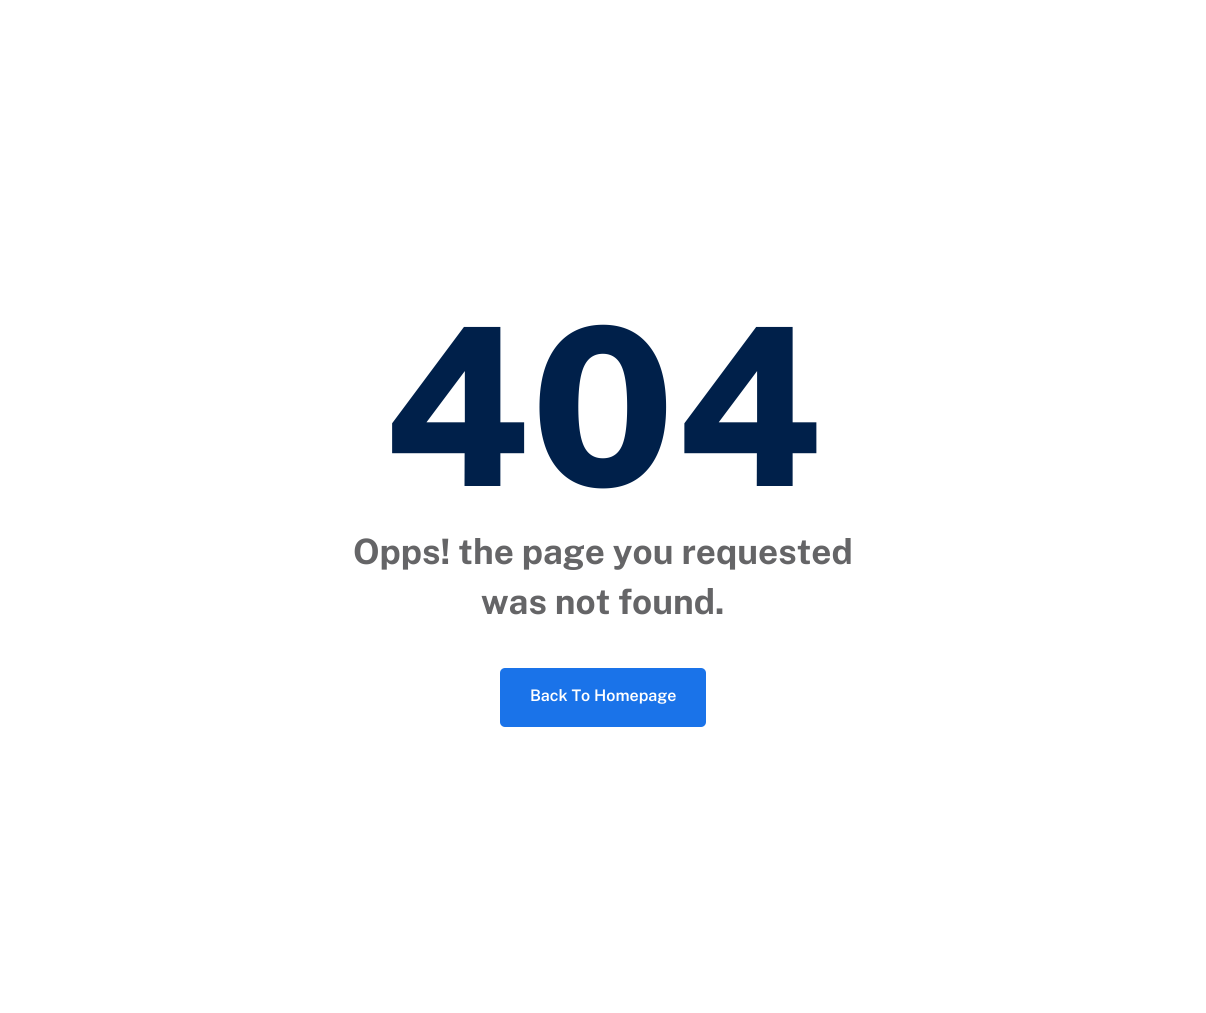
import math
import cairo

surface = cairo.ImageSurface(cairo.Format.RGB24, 1206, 1013)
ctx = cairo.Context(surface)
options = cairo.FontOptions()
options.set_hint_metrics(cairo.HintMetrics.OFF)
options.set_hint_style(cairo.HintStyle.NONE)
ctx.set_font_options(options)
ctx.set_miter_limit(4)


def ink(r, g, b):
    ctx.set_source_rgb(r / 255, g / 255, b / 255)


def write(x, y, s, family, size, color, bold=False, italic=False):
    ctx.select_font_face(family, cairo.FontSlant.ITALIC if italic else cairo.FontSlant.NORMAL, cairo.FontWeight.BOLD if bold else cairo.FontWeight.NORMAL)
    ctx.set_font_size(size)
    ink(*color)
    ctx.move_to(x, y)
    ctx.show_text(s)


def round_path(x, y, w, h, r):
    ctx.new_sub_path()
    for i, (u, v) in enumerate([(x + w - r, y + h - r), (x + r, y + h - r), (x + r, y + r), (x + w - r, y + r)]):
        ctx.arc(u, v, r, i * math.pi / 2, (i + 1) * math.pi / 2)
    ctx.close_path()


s1 = dict(family="Public Sans ExtraBold", size=220, color=(0, 32, 74))
s2 = dict(family="Public Sans", size=35, color=(101, 101, 103), bold=True)
s3 = dict(family="Public Sans SemiBold", size=16, color=(255, 255, 255))

ink(255, 255, 255)
ctx.paint()
write(383, 486, "404", **s1)
write(353, 564, "Opps! the page you requested", **s2)
write(481, 614, "was not found.", **s2)
ink(26, 115, 233)
round_path(500, 668, 206, 59, 5)
ctx.fill()
write(530, 701, "Back To Homepage", **s3)
surface.write_to_png("screenshot.png")
